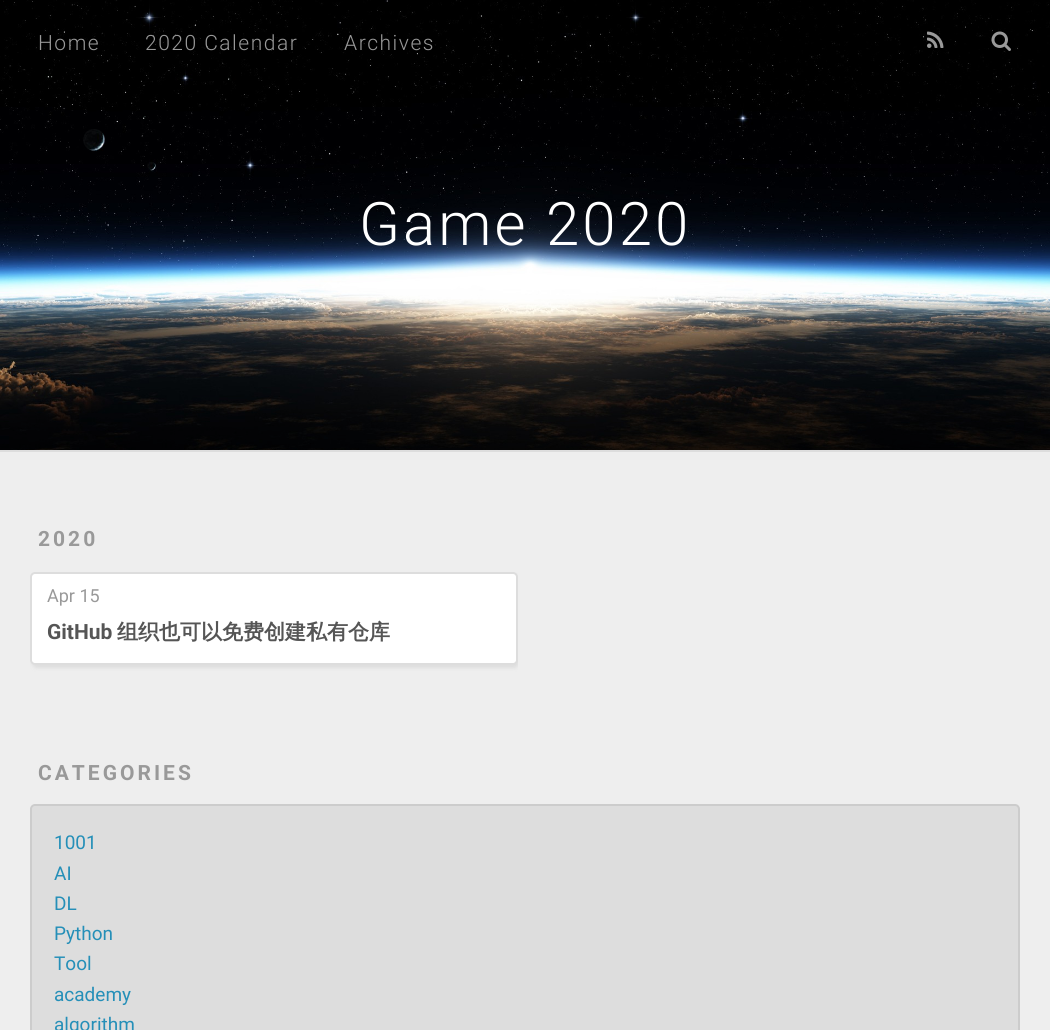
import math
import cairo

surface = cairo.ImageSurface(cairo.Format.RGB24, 1050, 1030)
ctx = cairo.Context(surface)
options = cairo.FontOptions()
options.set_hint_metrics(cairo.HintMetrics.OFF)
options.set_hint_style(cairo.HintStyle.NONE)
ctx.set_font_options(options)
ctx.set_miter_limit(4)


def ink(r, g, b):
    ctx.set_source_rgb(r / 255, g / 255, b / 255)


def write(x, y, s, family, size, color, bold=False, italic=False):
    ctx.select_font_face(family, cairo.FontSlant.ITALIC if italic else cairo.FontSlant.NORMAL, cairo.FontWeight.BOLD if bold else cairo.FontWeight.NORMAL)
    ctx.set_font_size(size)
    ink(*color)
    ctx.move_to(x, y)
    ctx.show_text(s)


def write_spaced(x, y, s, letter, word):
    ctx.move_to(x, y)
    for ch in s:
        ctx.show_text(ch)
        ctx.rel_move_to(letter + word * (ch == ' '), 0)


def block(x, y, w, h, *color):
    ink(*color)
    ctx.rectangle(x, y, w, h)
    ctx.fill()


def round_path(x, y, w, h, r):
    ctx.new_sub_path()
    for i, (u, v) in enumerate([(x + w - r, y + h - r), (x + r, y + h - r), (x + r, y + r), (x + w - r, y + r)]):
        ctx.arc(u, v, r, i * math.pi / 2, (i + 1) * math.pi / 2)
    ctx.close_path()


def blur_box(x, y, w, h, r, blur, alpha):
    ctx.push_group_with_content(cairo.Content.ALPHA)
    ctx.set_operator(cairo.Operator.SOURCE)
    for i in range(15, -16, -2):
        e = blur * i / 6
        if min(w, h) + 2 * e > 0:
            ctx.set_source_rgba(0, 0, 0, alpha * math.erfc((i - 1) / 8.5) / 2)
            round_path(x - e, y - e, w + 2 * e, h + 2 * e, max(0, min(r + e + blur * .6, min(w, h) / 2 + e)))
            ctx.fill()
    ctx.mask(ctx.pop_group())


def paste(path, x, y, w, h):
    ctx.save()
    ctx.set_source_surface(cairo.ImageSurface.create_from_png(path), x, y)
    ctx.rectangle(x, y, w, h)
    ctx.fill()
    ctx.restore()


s1 = dict(family="Roboto", size=18, color=(153, 153, 153))
s2 = dict(family="Roboto", size=21, color=(85, 85, 85), bold=True)
s3 = dict(family="WenQuanYi Zen Hei", size=21, color=(85, 85, 85), bold=True)
s4 = dict(family="Roboto", size=19, color=(37, 143, 184))

ink(238, 238, 238)
ctx.paint()
block(0, 450, 1050, 2, 221, 221, 221)
paste("pic1.png", 0, 0, 1050, 450)
ctx.select_font_face("Roboto Light")
ctx.set_font_size(21)
ink(153, 153, 153)
write_spaced(38, 50, "Home", 1.5, 0)
write_spaced(145, 50, "2020 Calendar", 1.5, 0)
write_spaced(344, 50, "Archives", 1.5, 0)
paste("pic2.png", 927, 31, 17, 17)
paste("pic3.png", 991, 31, 20, 20)
ctx.set_font_size(60)
ink(255, 255, 255)
write_spaced(359, 245, "Game 2020", 3, 0)
ctx.select_font_face("Roboto", cairo.FontSlant.NORMAL, cairo.FontWeight.BOLD)
ctx.set_font_size(21)
ink(153, 153, 153)
write_spaced(38, 546, "2020", 3, 0)
ctx.save()
ctx.rectangle(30, 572, 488, 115)
ctx.clip()
ink(221, 221, 221)
blur_box(32, 575, 487, 93, 5, 2, 1)
ctx.restore()
ink(255, 255, 255)
round_path(31, 573, 486, 91, 4)
ctx.fill_preserve()
ink(221, 221, 221)
ctx.stroke()
write(47, 602, "Apr 15", **s1)
write(47, 639, "GitHub", **s2)
write(117, 639, "组织也可以免费创建私有仓库", **s3)
ctx.select_font_face("Roboto", cairo.FontSlant.NORMAL, cairo.FontWeight.BOLD)
ink(153, 153, 153)
write_spaced(38, 780, "CATEGORIES", 3, 0)
ink(221, 221, 221)
round_path(31, 805, 988, 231, 4)
ctx.fill_preserve()
ink(204, 204, 204)
ctx.stroke()
write(54, 849, "1001", **s4)
write(54, 880, "AI", **s4)
write(54, 910, "DL", **s4)
write(54, 940, "Python", **s4)
write(54, 970, "Tool", **s4)
write(54, 1001, "academy", **s4)
write(54, 1031, "algorithm", **s4)
surface.write_to_png("screenshot.png")
